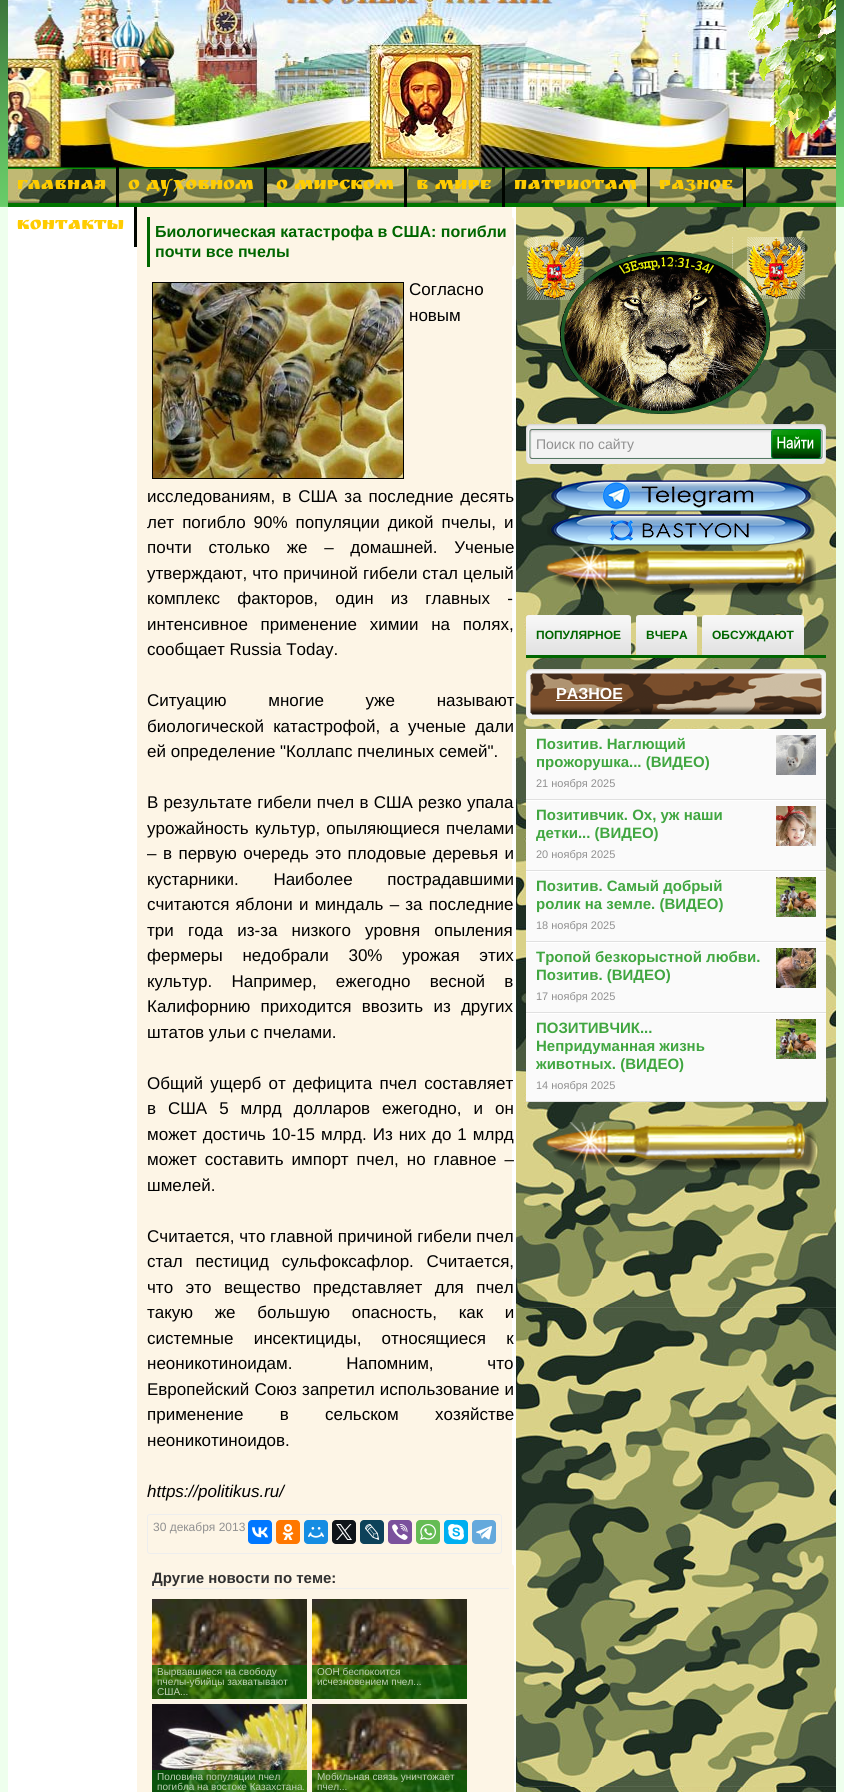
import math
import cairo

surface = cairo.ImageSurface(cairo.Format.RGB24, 844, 1792)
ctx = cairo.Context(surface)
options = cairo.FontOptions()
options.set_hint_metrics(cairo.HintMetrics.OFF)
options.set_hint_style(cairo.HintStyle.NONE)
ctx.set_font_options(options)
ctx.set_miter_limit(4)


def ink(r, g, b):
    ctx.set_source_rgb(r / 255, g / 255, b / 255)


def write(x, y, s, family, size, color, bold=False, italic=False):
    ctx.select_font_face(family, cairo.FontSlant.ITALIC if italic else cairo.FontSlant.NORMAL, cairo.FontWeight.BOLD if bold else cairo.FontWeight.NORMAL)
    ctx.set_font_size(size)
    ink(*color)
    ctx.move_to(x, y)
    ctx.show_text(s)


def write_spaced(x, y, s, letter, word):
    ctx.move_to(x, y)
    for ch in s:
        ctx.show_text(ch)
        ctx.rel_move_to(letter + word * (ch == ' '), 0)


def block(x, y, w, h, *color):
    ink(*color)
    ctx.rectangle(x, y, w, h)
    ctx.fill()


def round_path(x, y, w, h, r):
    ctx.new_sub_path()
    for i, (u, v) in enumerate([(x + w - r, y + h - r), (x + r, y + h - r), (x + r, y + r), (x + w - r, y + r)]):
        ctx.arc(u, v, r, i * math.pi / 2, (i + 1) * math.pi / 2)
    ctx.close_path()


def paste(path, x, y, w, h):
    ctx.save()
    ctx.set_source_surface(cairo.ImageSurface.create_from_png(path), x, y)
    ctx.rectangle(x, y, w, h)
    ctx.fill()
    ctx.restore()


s1 = dict(family="Ruslan Display", size=18, color=(255, 204, 1))
s2 = dict(family="Liberation Sans", size=16, color=(0, 102, 0), bold=True)
s3 = dict(family="Liberation Sans", size=17, color=(0, 0, 0))
s4 = dict(family="Liberation Sans", size=17, color=(0, 0, 0), italic=True)
s5 = dict(family="Liberation Sans", size=12, color=(144, 144, 144))
s6 = dict(family="Liberation Sans", size=15, color=(48, 48, 48), bold=True)
s7 = dict(family="Liberation Sans", size=10, color=(191, 209, 183))
s8 = dict(family="Liberation Sans", size=14, color=(144, 144, 144))
s9 = dict(family="Liberation Sans", size=12, color=(0, 102, 0), bold=True)
s10 = dict(family="Liberation Sans", size=16, color=(255, 255, 255), bold=True)
s11 = dict(family="Liberation Sans", size=15, color=(64, 166, 64), bold=True)
s12 = dict(family="Liberation Sans", size=11, color=(144, 144, 144))

ink(238, 255, 237)
ctx.paint()
paste("pic1.png", 0, 0, 844, 207)
paste("pic2.png", 8, 0, 828, 167)
paste("pic3.png", 748, 0, 88, 139)
block(8, 207, 508, 1585, 255, 255, 255)
paste("pic4.png", 8, 167, 828, 40)
block(116, 167, 3, 40, 0, 5, 0)
write(17, 189, "ГЛАВНАЯ", **s1)
block(264, 167, 3, 40, 0, 5, 0)
write(128, 189, "О ДУХОВНОМ", **s1)
block(404, 167, 3, 40, 0, 5, 0)
write(276, 189, "О МИРСКОМ", **s1)
block(502, 167, 3, 40, 0, 5, 0)
write(416, 189, "В МИРЕ", **s1)
block(647, 167, 3, 40, 0, 5, 0)
write(514, 189, "ПАТРИОТАМ", **s1)
block(743, 167, 3, 40, 0, 5, 0)
write(659, 189, "РАЗНОЕ", **s1)
block(134, 207, 3, 40, 0, 5, 0)
write(17, 229, "КОНТАКТЫ", **s1)
paste("pic5.png", 516, 207, 320, 1585)
block(137, 207, 375, 1585, 253, 245, 230)
ctx.new_path()
ctx.move_to(147, 217)
ctx.line_to(511, 217)
ctx.curve_to(512.5, 217, 514, 218.5, 514, 220)
ctx.line_to(514, 264)
ctx.curve_to(514, 265.5, 512.5, 267, 511, 267)
ctx.line_to(147, 267)
ctx.close_path()
ctx.fill()
block(147, 217, 3, 50, 0, 102, 0)
write(155, 237, "Биологическая катастрофа в США: погибли", **s2)
write(155, 257, "почти все пчелы", **s2)
ctx.rectangle(152.5, 282.5, 251, 196)
ink(0, 0, 0)
ctx.set_line_width(1)
ctx.stroke()
paste("pic6.png", 153, 283, 250, 195)
write(409, 295, "Согласно", **s3)
write(409, 321, "новым", **s3)
write_spaced(147, 502, "исследованиям, в США за последние десять", 0, 2.25)
write_spaced(147, 528, "лет погибло 90% популяции дикой пчелы, и", 0, 3.25)
write_spaced(147, 553, "почти столько же – домашней. Ученые", 0, 12)
write_spaced(147, 579, "утверждают, что причиной гибели стал целый", 0, 0.25)
write_spaced(147, 604, "комплекс факторов, один из главных -", 0, 12.5)
write_spaced(147, 630, "интенсивное применение химии на полях,", 0, 8)
write(147, 655, "сообщает Russia Today.", **s3)
write_spaced(147, 706, "Ситуацию многие уже называют", 0, 37)
write_spaced(147, 732, "биологической катастрофой, а ученые дали", 0, 4.5)
write(147, 757, "ей определение \"Коллапс пчелиных семей\".", **s3)
write_spaced(147, 808, "В результате гибели пчел в США резко упала", 0, 0.5)
write_spaced(147, 834, "урожайность культур, опыляющиеся пчелами", 0, 1.5)
write_spaced(147, 859, "– в первую очередь это плодовые деревья и", 0, 1.75)
write_spaced(147, 885, "кустарники. Наиболее пострадавшими", 0, 30)
write_spaced(147, 910, "считаются яблони и миндаль – за последние", 0, 1.5)
write_spaced(147, 936, "три года из-за низкого уровня опыления", 0, 9.5)
write_spaced(147, 961, "фермеры недобрали 30% урожая этих", 0, 15)
write_spaced(147, 987, "культур. Например, ежегодно весной в", 0, 14.5)
write_spaced(147, 1012, "Калифорнию приходится ввозить из других", 0, 5.5)
write(147, 1038, "штатов ульи с пчелами.", **s3)
write_spaced(147, 1089, "Общий ущерб от дефицита пчел составляет", 0, 2.5)
write_spaced(147, 1114, "в США 5 млрд долларов ежегодно, и он", 0, 7.25)
write_spaced(147, 1140, "может достичь 10-15 млрд. Из них до 1 млрд", 0, 1.25)
write_spaced(147, 1165, "может составить импорт пчел, но главное –", 0, 3.25)
write(147, 1191, "шмелей.", **s3)
write(147, 1242, "Считается, что главной причиной гибели пчел", **s3)
write_spaced(147, 1267, "стал пестицид сульфоксафлор. Считается,", 0, 8)
write_spaced(147, 1293, "что это вещество представляет для пчел", 0, 7.75)
write_spaced(147, 1318, "такую же большую опасность, как и", 0, 17)
write_spaced(147, 1344, "системные инсектициды, относящиеся к", 0, 15.5)
write_spaced(147, 1369, "неоникотиноидам. Напомним, что", 0, 49)
write_spaced(147, 1395, "Европейский Союз запретил использование и", 0, 0.5)
write_spaced(147, 1420, "применение в сельском хозяйстве", 0, 31.5)
write(147, 1446, "неоникотиноидов.", **s3)
write(147, 1497, "https://politikus.ru/", **s4)
round_path(147.5, 1514.5, 354, 39, 2.5)
ink(238, 238, 238)
ctx.stroke()
write(153, 1531, "30 декабря 2013", **s5)
ink(0, 119, 255)
round_path(248, 1520, 24, 24, 4)
ctx.fill()
paste("pic7.png", 252, 1527, 16, 11)
ink(255, 119, 0)
round_path(276, 1520, 24, 24, 4)
ctx.fill()
paste("pic8.png", 282, 1524, 12, 16)
ink(22, 141, 226)
round_path(304, 1520, 24, 24, 4)
ctx.fill()
paste("pic9.png", 308, 1527, 16, 11)
ink(15, 20, 25)
round_path(332, 1520, 24, 24, 4)
ctx.fill()
paste("pic10.png", 336, 1524, 16, 16)
ink(13, 66, 90)
round_path(360, 1520, 24, 24, 4)
ctx.fill()
paste("pic11.png", 365, 1524, 15, 16)
ink(123, 81, 157)
round_path(388, 1520, 24, 24, 4)
ctx.fill()
paste("pic12.png", 392, 1524, 16, 16)
ink(101, 188, 84)
round_path(416, 1520, 24, 24, 4)
ctx.fill()
paste("pic13.png", 420, 1524, 16, 16)
ink(0, 175, 240)
round_path(444, 1520, 24, 24, 4)
ctx.fill()
paste("pic14.png", 448, 1524, 16, 16)
ink(100, 169, 220)
round_path(472, 1520, 24, 24, 4)
ctx.fill()
paste("pic15.png", 476, 1526, 16, 14)
ink(253, 245, 230)
round_path(147, 1564, 367, 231, 3)
ctx.fill()
block(152, 1588, 357, 1, 238, 238, 238)
write(152, 1583, "Другие новости по теме:", **s6)
paste("pic16.png", 152, 1599, 155, 100)
ctx.set_source_rgba(0, 0.4, 0, 0.7)
ctx.rectangle(152, 1665, 155, 34)
ctx.fill()
write(157, 1675, "Вырвавшиеся на свободу", **s7)
write(157, 1685, "пчелы-убийцы захватывают", **s7)
write(157, 1695, "США...", **s7)
paste("pic17.png", 312, 1599, 155, 100)
ctx.set_source_rgba(0, 0.4, 0, 0.7)
ctx.rectangle(312, 1665, 155, 34)
ctx.fill()
write(317, 1675, "ООН беспокоится", **s7)
write(317, 1685, "исчезновением пчел...", **s7)
paste("pic18.png", 152, 1704, 155, 88)
ctx.set_source_rgba(0, 0.4, 0, 0.7)
ctx.rectangle(152, 1770, 155, 22)
ctx.fill()
write(157, 1780, "Половина популяции пчел", **s7)
write(157, 1790, "погибла на востоке Казахстана.", **s7)
paste("pic19.png", 312, 1704, 155, 88)
ctx.set_source_rgba(0, 0.4, 0, 0.7)
ctx.rectangle(312, 1770, 155, 22)
ctx.fill()
write(317, 1780, "Мобильная связь уничтожает", **s7)
write(317, 1790, "пчел...", **s7)
paste("pic20.png", 527, 237, 278, 177)
paste("pic21.png", 526, 424, 300, 40)
write(536, 449, "Поиск по сайту", **s8)
paste("pic22.png", 771, 429, 50, 30)
paste("pic23.png", 546, 480, 270, 33)
paste("pic24.png", 547, 514, 269, 33)
paste("pic25.png", 546, 547, 270, 48)
block(526, 655, 300, 3, 0, 102, 0)
paste("pic26.png", 526, 615, 105, 40)
write(536, 639, "ПОПУЛЯРНОЕ", **s9)
paste("pic27.png", 636, 615, 61, 40)
write(646, 639, "ВЧЕРА", **s9)
paste("pic28.png", 702, 615, 102, 40)
write(712, 639, "ОБСУЖДАЮТ", **s9)
paste("pic29.png", 526, 669, 300, 50)
write(556, 699, "РАЗНОЕ", **s10)
block(556, 700, 66, 1, 255, 255, 255)
block(526, 730, 300, 69, 250, 250, 250)
block(526, 729, 300, 1, 255, 255, 255)
block(526, 799, 300, 1, 224, 224, 224)
write(536, 749, "Позитив. Наглющий", **s11)
write(536, 767, "прожорушка... (ВИДЕО)", **s11)
paste("pic30.png", 776, 735, 40, 40)
write(536, 787, "21 ноября 2025", **s12)
block(526, 801, 300, 69, 250, 250, 250)
block(526, 800, 300, 1, 255, 255, 255)
block(526, 870, 300, 1, 224, 224, 224)
write(536, 820, "Позитивчик. Ох, уж наши", **s11)
ctx.save()
ctx.rectangle(536, 806, 230, 36)
ctx.clip()
write(536, 838, "детки... (ВИДЕО)", **s11)
ctx.restore()
paste("pic31.png", 776, 806, 40, 40)
write(536, 858, "20 ноября 2025", **s12)
block(526, 872, 300, 69, 250, 250, 250)
block(526, 871, 300, 1, 255, 255, 255)
block(526, 941, 300, 1, 224, 224, 224)
write(536, 891, "Позитив. Самый добрый", **s11)
write(536, 909, "ролик на земле. (ВИДЕО)", **s11)
paste("pic32.png", 776, 877, 40, 40)
write(536, 929, "18 ноября 2025", **s12)
block(526, 943, 300, 69, 250, 250, 250)
block(526, 942, 300, 1, 255, 255, 255)
block(526, 1012, 300, 1, 224, 224, 224)
ctx.save()
ctx.rectangle(536, 948, 230, 36)
ctx.clip()
write(536, 962, "Тропой безкорыстной любви.", **s11)
ctx.restore()
write(536, 980, "Позитив. (ВИДЕО)", **s11)
paste("pic33.png", 776, 948, 40, 40)
write(536, 1000, "17 ноября 2025", **s12)
block(526, 1014, 300, 87, 250, 250, 250)
block(526, 1013, 300, 1, 255, 255, 255)
block(526, 1101, 300, 1, 224, 224, 224)
write(536, 1033, "ПОЗИТИВЧИК...", **s11)
write(536, 1051, "Непридуманная жизнь", **s11)
write(536, 1069, "животных. (ВИДЕО)", **s11)
paste("pic32.png", 776, 1019, 40, 40)
write(536, 1089, "14 ноября 2025", **s12)
paste("pic34.png", 546, 1122, 270, 48)
surface.write_to_png("screenshot.png")
